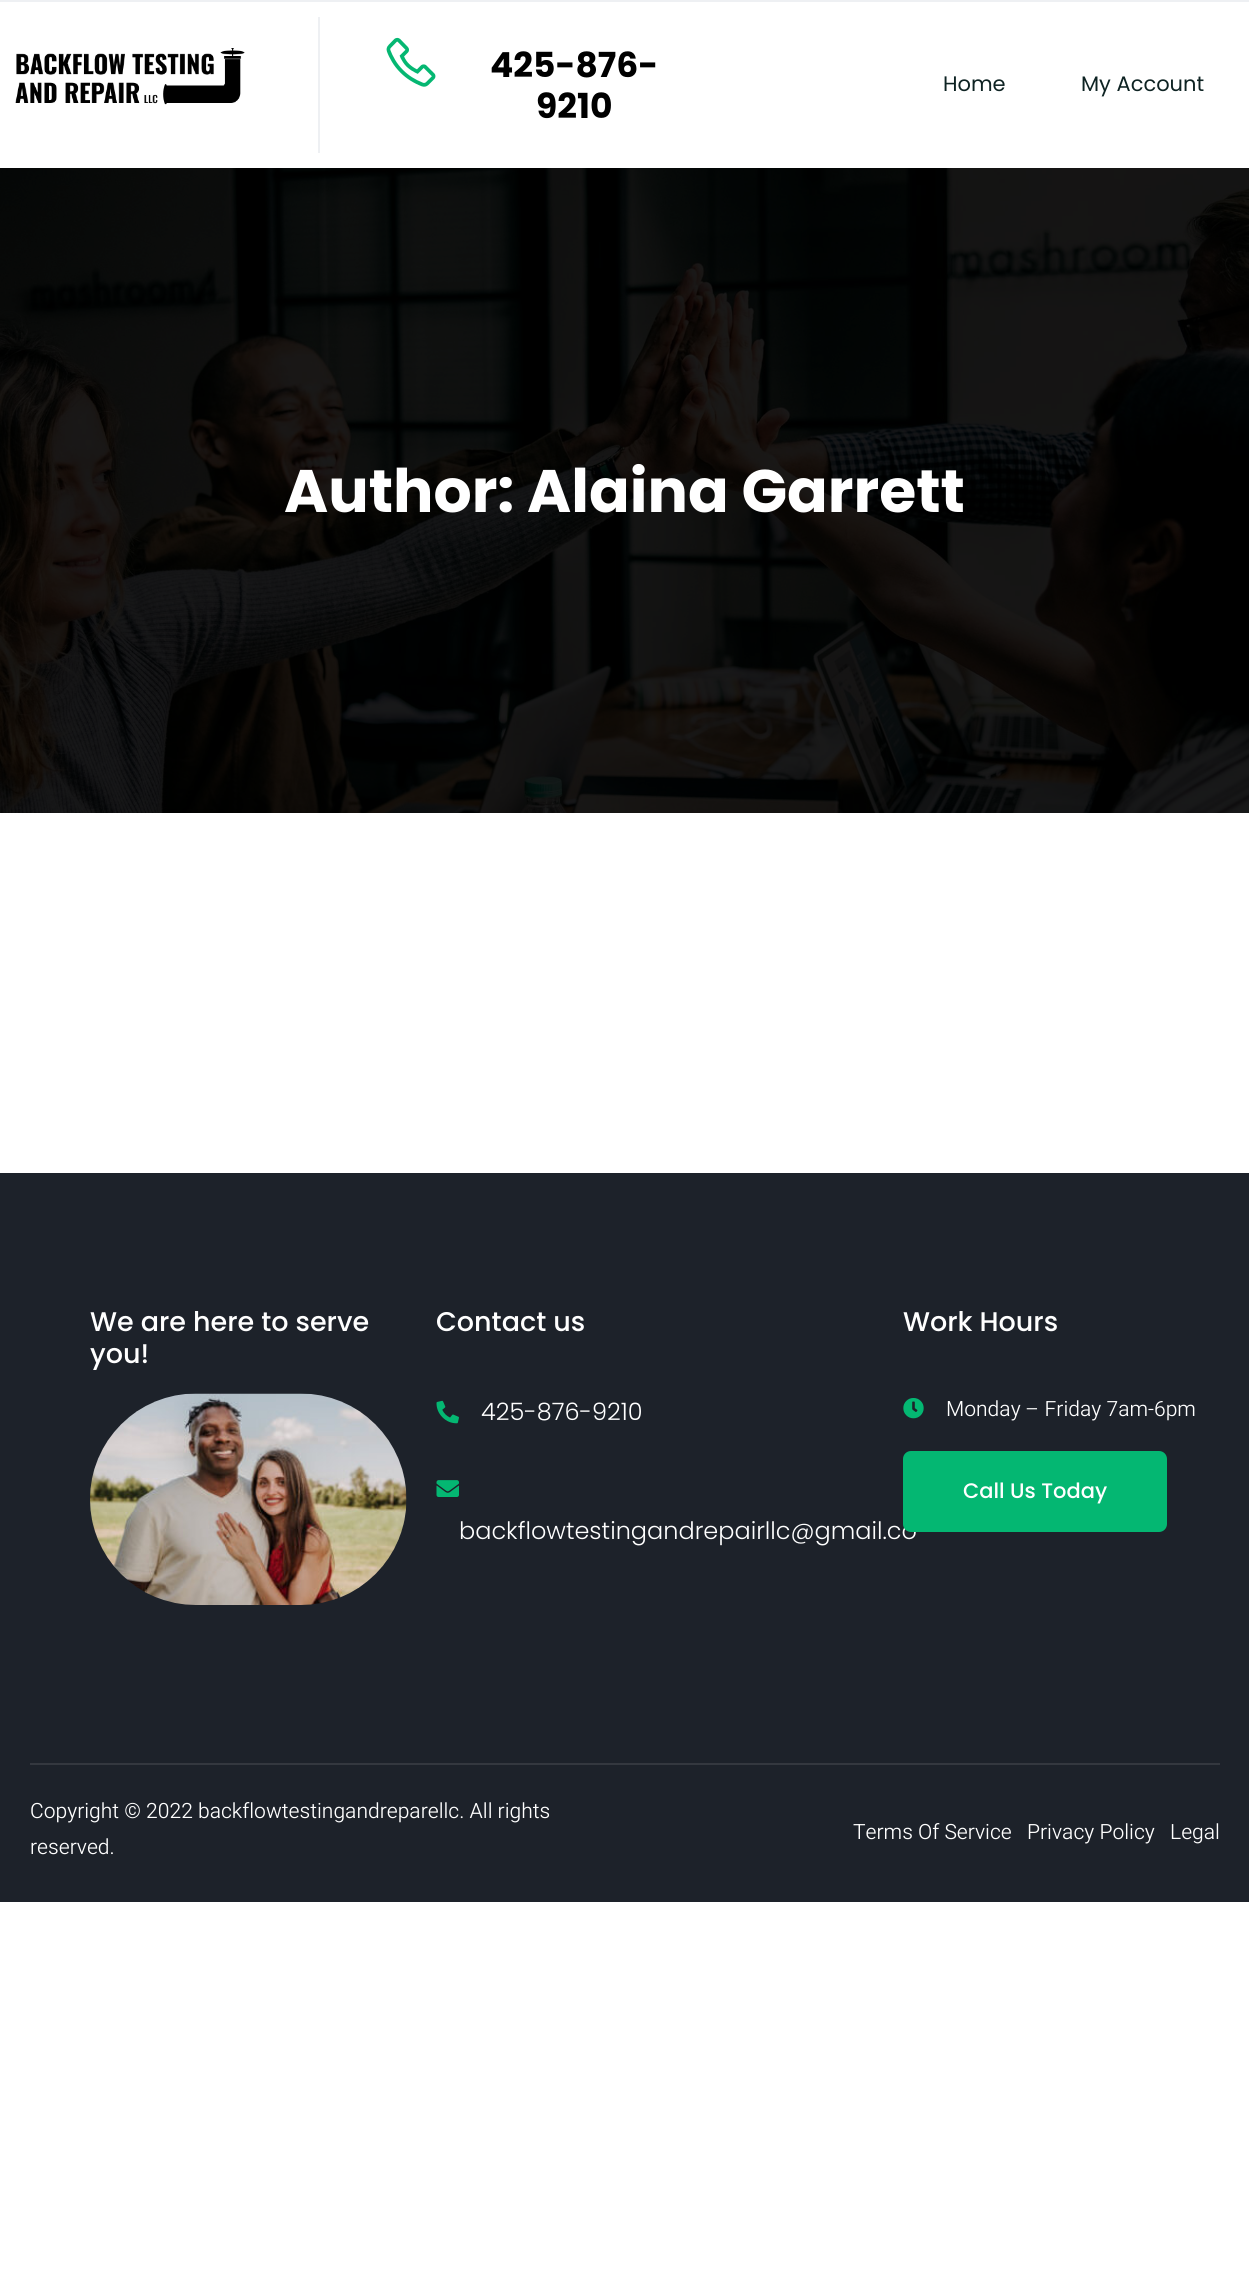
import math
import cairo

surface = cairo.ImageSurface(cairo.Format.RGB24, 1249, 2276)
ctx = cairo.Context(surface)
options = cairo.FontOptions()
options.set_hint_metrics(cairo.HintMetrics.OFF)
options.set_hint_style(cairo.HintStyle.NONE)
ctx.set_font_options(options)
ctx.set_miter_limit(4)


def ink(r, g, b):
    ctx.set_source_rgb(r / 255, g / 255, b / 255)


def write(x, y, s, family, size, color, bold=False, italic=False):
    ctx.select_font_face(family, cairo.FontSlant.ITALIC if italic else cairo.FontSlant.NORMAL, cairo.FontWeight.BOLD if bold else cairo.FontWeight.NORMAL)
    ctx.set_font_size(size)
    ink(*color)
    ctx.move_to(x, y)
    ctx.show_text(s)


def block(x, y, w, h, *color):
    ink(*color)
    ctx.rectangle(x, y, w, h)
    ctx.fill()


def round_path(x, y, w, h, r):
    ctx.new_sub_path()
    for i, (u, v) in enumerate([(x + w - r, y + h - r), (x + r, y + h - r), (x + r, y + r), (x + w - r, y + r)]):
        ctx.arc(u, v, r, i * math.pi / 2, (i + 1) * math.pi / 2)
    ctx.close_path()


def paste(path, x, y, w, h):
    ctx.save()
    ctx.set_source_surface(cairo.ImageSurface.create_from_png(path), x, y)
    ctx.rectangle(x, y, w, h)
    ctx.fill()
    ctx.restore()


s1 = dict(family="Poppins", size=34.5, color=(0, 0, 0), bold=True)
s2 = dict(family="Poppins", size=21, color=(14, 35, 35))
s3 = dict(family="Poppins", size=60, color=(255, 255, 255), bold=True)
s4 = dict(family="Poppins Medium", size=27, color=(255, 255, 255))
s5 = dict(family="Poppins Light", size=24, color=(255, 255, 255))
s6 = dict(family="Heebo Light", size=21, color=(255, 255, 255))
s7 = dict(family="Poppins Medium", size=21, color=(255, 255, 255))

ink(255, 255, 255)
ctx.paint()
block(0, 0, 1249, 2, 238, 240, 243)
paste("pic1.png", 15, 48, 230, 57)
block(318, 17, 2, 136, 238, 240, 243)
paste("pic2.png", 386, 37, 50, 50)
write(490, 77, "425-876-", **s1)
write(536, 118, "9210", **s1)
write(943, 91, "Home", **s2)
write(1081, 91, "My Account", **s2)
paste("pic3.png", 0, 168, 1249, 645)
write(284, 512, "Author: Alaina Garrett", **s3)
block(0, 1173, 1249, 729, 29, 34, 42)
write(90, 1331, "We are here to serve", **s4)
write(90, 1363, "you!", **s4)
paste("pic4.png", 90, 1393, 317, 212)
write(436, 1331, "Contact us", **s4)
paste("pic5.png", 436, 1400, 23, 24)
write(481, 1420, "425-876-9210", **s5)
paste("pic6.png", 436, 1480, 23, 17)
write(459, 1539, "backflowtestingandrepairllc@gmail.co", **s5)
write(903, 1331, "Work Hours", **s4)
paste("pic7.png", 903, 1398, 21, 21)
write(946, 1416, "Monday – Friday 7am-6pm", **s6)
ink(4, 183, 114)
round_path(903, 1451, 264, 81, 8)
ctx.fill()
write(963, 1498, "Call Us Today", **s7)
block(30, 1763, 1190, 2, 52, 56, 63)
write(30, 1818, "Copyright © 2022 backflowtestingandreparellc. All rights", **s6)
write(30, 1854, "reserved.", **s6)
write(853, 1839, "Terms Of Service", **s6)
write(1027, 1839, "Privacy Policy", **s6)
write(1170, 1839, "Legal", **s6)
surface.write_to_png("screenshot.png")
